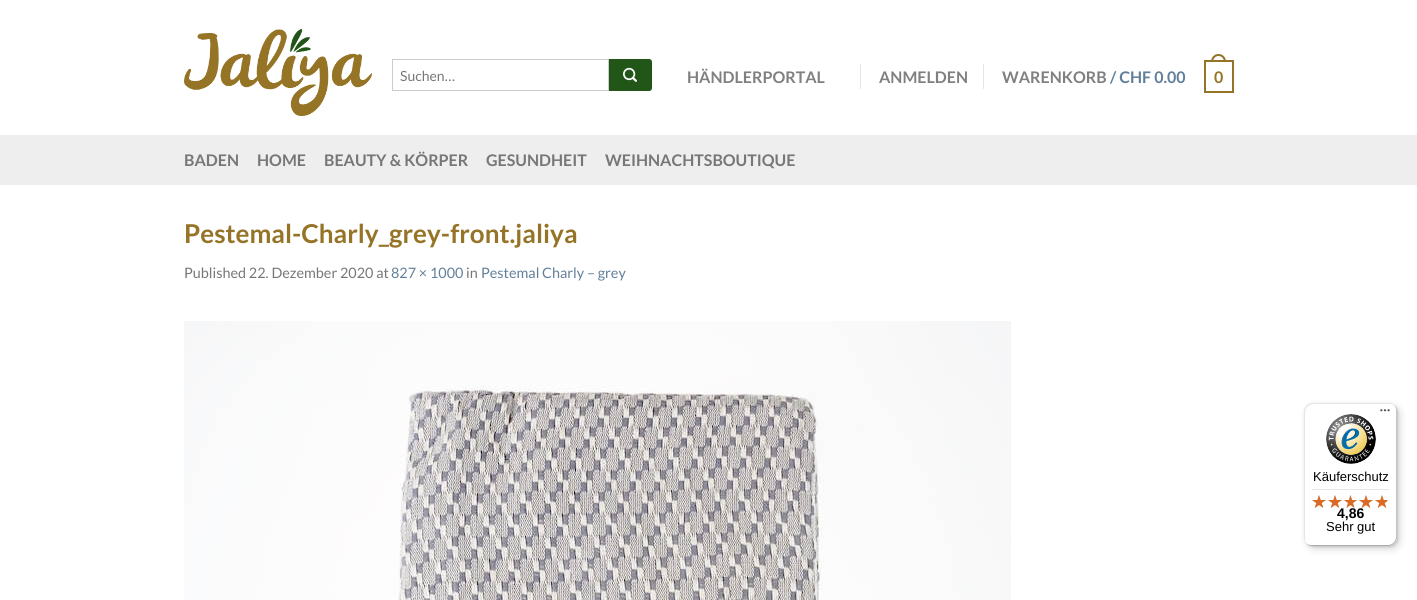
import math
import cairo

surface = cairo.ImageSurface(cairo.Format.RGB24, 1417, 600)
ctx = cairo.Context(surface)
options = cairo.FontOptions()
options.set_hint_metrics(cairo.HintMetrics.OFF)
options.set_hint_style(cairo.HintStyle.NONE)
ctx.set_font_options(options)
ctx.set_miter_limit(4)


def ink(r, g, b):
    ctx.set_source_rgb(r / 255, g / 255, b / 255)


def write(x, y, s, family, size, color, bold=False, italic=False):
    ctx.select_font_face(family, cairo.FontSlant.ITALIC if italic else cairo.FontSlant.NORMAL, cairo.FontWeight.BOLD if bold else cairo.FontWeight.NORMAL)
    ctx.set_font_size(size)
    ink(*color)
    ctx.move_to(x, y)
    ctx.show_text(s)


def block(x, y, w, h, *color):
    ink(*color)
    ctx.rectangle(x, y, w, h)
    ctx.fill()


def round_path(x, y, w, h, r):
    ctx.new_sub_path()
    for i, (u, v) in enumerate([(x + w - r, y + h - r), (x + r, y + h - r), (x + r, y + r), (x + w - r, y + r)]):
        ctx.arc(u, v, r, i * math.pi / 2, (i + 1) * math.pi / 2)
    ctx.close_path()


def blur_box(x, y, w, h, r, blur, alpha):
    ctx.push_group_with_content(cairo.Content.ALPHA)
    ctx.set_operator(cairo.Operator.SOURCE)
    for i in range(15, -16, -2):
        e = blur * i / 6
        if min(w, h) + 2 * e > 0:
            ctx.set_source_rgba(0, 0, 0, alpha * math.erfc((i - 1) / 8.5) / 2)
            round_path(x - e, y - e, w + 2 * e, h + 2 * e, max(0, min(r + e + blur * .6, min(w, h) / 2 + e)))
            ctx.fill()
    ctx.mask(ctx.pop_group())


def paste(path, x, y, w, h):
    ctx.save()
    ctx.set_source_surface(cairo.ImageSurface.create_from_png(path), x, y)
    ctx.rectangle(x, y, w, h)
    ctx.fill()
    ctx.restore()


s1 = dict(family="Lato", size=14, color=(119, 119, 119))
s2 = dict(family="Lato", size=16, color=(128, 128, 128), bold=True)
s3 = dict(family="Lato", size=16, color=(98, 127, 154), bold=True)
s4 = dict(family="Lato", size=16, color=(149, 116, 39), bold=True)
s5 = dict(family="Lato", size=16, color=(119, 119, 119), bold=True)
s6 = dict(family="Lato", size=26, color=(149, 116, 39), bold=True)
s7 = dict(family="Lato", size=14.4, color=(119, 119, 119))
s8 = dict(family="Lato", size=14.4, color=(98, 127, 154))
s9 = dict(family="Liberation Sans", size=13, color=(0, 0, 0))
s10 = dict(family="Liberation Sans", size=14, color=(0, 0, 0), bold=True)

ink(255, 255, 255)
ctx.paint()
paste("pic1.png", 184, 29, 188, 87)
ctx.rectangle(392.5, 59.5, 216, 31)
ink(204, 204, 204)
ctx.set_line_width(1)
ctx.stroke()
write(400, 81, "Suchen…", **s1)
ink(33, 86, 24)
ctx.new_path()
ctx.move_to(609.5, 59.5)
ctx.line_to(649, 59.5)
ctx.curve_to(650.5, 59.5, 651.5, 60.5, 651.5, 62)
ctx.line_to(651.5, 88)
ctx.curve_to(651.5, 89.5, 650.5, 90.5, 649, 90.5)
ctx.line_to(609.5, 90.5)
ctx.close_path()
ctx.fill_preserve()
ctx.stroke()
paste("pic2.png", 623, 67, 14, 15)
block(860, 64, 1, 25, 230, 230, 230)
write(687, 83, "HÄNDLERPORTAL", **s2)
block(983, 64, 1, 25, 230, 230, 230)
write(879, 83, "ANMELDEN", **s2)
write(1002, 83, "WARENKORB", **s2)
write(1110, 83, "/ CHF 0.00", **s3)
ink(149, 116, 39)
ctx.set_fill_rule(cairo.FillRule.EVEN_ODD)
ctx.new_path()
ctx.move_to(1218.5, 54)
ctx.curve_to(1223, 54, 1226, 57.5, 1226, 62)
ctx.line_to(1211, 62)
ctx.curve_to(1211, 57.5, 1214, 54, 1218.5, 54)
ctx.close_path()
ctx.move_to(1218.5, 56)
ctx.curve_to(1222, 56, 1224, 59, 1224, 62)
ctx.line_to(1213, 62)
ctx.curve_to(1213, 59, 1215, 56, 1218.5, 56)
ctx.close_path()
ctx.fill()
ctx.rectangle(1205, 61, 28, 31)
ctx.set_line_width(2)
ctx.stroke()
write(1214, 83, "0", **s4)
block(0, 135, 1417, 50, 238, 238, 238)
write(184, 166, "BADEN", **s5)
write(257, 166, "HOME", **s5)
write(324, 166, "BEAUTY & KÖRPER", **s5)
write(486, 166, "GESUNDHEIT", **s5)
write(605, 166, "WEIHNACHTSBOUTIQUE", **s5)
write(184, 243, "Pestemal-Charly_grey-front.jaliya", **s6)
write(184, 278, "Published 22. Dezember 2020 at", **s7)
write(391, 278, "827 × 1000", **s8)
write(466, 278, "in", **s7)
write(481, 278, "Pestemal Charly – grey", **s8)
paste("pic3.png", 184, 321, 827, 279)
ink(0, 0, 0)
blur_box(1307, 406, 93, 143, 8, 4, 0.15)
blur_box(1305, 404, 93, 143, 8, 1, 0.15)
ink(255, 255, 255)
round_path(1304, 403, 93, 143, 8)
ctx.fill()
ink(229, 229, 229)
ctx.set_fill_rule(cairo.FillRule.WINDING)
ctx.new_path()
ctx.move_to(1313, 404)
ctx.line_to(1390, 404)
ctx.curve_to(1392, 404, 1394, 405, 1396, 407)
ctx.curve_to(1394, 405, 1392, 403, 1389, 403)
ctx.line_to(1312, 403)
ctx.curve_to(1308, 403, 1304, 407, 1304, 411)
ctx.line_to(1304, 538)
ctx.curve_to(1304, 541, 1306, 543, 1308, 545)
ctx.curve_to(1306, 543, 1305, 541, 1305, 539)
ctx.line_to(1305, 412)
ctx.curve_to(1305, 408, 1309, 404, 1313, 404)
ctx.close_path()
ctx.fill()
ink(204, 204, 204)
ctx.new_path()
ctx.move_to(1305, 542)
ctx.curve_to(1307, 544, 1309, 546, 1312, 546)
ctx.line_to(1389, 546)
ctx.curve_to(1393, 546, 1397, 542, 1397, 538)
ctx.line_to(1397, 411)
ctx.curve_to(1397, 408, 1395, 406, 1393, 404)
ctx.curve_to(1395, 406, 1396, 408, 1396, 410)
ctx.line_to(1396, 537)
ctx.curve_to(1396, 541, 1392, 545, 1388, 545)
ctx.line_to(1311, 545)
ctx.curve_to(1309, 545, 1307, 544, 1305, 542)
ctx.close_path()
ctx.fill()
ctx.set_source_rgba(0.196, 0.196, 0.196, 0.2)
ctx.new_path()
ctx.move_to(1306, 543)
ctx.curve_to(1307, 545, 1310, 546, 1312, 546)
ctx.line_to(1389, 546)
ctx.curve_to(1393, 546, 1397, 542, 1397, 538)
ctx.line_to(1397, 411)
ctx.curve_to(1397, 409, 1396, 406, 1394, 405)
ctx.curve_to(1395, 406, 1396, 408, 1396, 410)
ctx.line_to(1396, 537)
ctx.curve_to(1396, 542, 1393, 545, 1388, 545)
ctx.line_to(1311, 545)
ctx.curve_to(1309, 545, 1307, 544, 1306, 543)
ctx.close_path()
ctx.fill()
ctx.set_source_rgba(1, 1, 1, 0.3)
ctx.new_path()
ctx.move_to(1388, 546)
ctx.line_to(1389, 546)
ctx.curve_to(1393, 546, 1397, 542, 1397, 538)
ctx.line_to(1397, 411)
ctx.curve_to(1397, 409, 1396, 406, 1394, 405)
ctx.curve_to(1395, 406, 1396, 408, 1396, 410)
ctx.line_to(1396, 538)
ctx.curve_to(1396, 542, 1393, 546, 1388, 546)
ctx.close_path()
ctx.fill()
paste("pic4.png", 1380, 409, 10, 3)
paste("pic5.png", 1326, 414, 50, 50)
write(1313, 481, "Käuferschutz", **s9)
block(1312, 489, 77, 1, 229, 229, 229)
paste("pic6.png", 1312, 495, 14, 13)
paste("pic6.png", 1328, 495, 14, 13)
paste("pic7.png", 1344, 495, 13, 13)
paste("pic6.png", 1359, 495, 14, 13)
paste("pic6.png", 1375, 495, 14, 13)
paste("pic8.png", 1312, 495, 14, 13)
paste("pic8.png", 1328, 495, 14, 13)
paste("pic9.png", 1344, 495, 13, 13)
paste("pic8.png", 1359, 495, 14, 13)
paste("pic10.png", 1375, 495, 12, 13)
write(1337, 518, "4,86", **s10)
write(1326, 531, "Sehr gut", **s9)
surface.write_to_png("screenshot.png")
